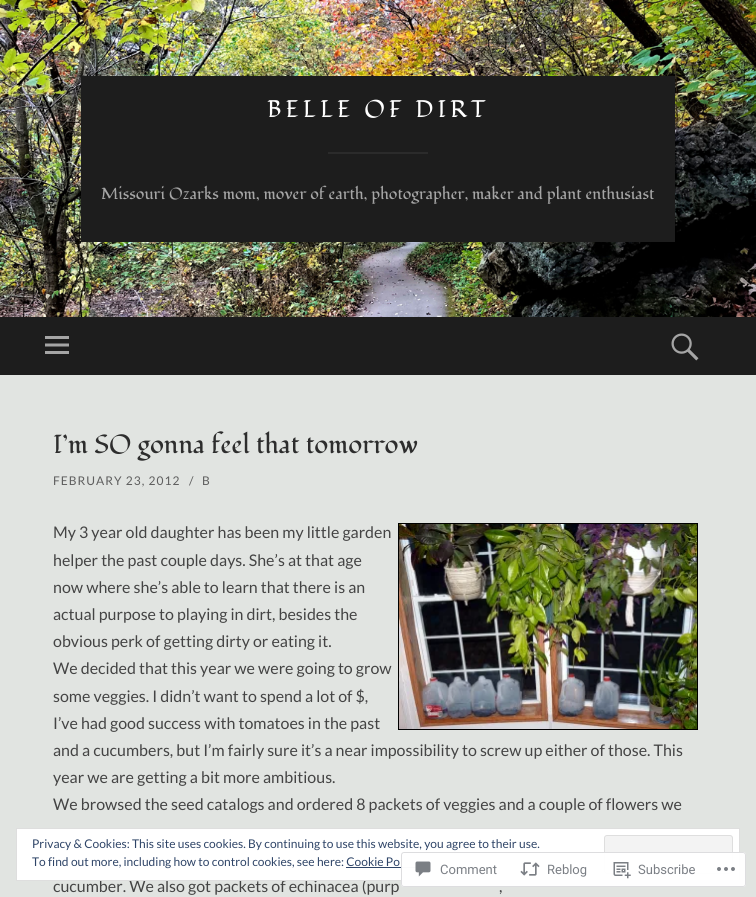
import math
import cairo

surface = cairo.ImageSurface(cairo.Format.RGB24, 756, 897)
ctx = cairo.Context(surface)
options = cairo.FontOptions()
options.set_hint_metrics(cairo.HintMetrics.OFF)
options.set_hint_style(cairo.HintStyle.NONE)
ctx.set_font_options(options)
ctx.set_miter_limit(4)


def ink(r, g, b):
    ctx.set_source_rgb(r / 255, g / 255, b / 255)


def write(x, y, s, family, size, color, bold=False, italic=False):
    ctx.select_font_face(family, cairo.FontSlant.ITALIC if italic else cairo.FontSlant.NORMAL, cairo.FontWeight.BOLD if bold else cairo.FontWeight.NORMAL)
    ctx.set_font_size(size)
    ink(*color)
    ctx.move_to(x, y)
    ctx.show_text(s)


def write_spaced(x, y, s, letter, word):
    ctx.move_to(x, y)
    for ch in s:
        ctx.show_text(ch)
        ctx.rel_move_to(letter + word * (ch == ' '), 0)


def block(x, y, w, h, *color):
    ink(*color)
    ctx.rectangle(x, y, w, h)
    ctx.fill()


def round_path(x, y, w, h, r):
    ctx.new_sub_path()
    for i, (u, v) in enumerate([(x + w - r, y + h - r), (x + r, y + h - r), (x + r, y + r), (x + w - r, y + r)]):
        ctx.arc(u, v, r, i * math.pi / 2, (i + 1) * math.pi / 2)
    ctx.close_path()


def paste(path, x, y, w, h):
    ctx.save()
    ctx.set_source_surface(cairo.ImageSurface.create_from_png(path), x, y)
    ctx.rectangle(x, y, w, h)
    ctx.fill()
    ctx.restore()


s1 = dict(family="Fondamento", size=16, color=(165, 165, 165))
s2 = dict(family="Fondamento", size=26, color=(45, 45, 45))
s3 = dict(family="Lato", size=16, color=(68, 68, 68))
s4 = dict(family="Lato", size=12, color=(46, 68, 103))
s5 = dict(family="Roboto", size=13, color=(123, 127, 133))

ink(225, 228, 225)
ctx.paint()
paste("pic1.png", 0, 0, 756, 317)
block(81, 76, 594, 166, 29, 29, 29)
ctx.select_font_face("Fondamento")
ctx.set_font_size(24)
ink(255, 255, 255)
write_spaced(267, 117, "BELLE OF DIRT", 4, 0)
block(328, 152, 100, 2, 43, 43, 43)
write(101, 199, "Missouri Ozarks mom, mover of earth, photographer, maker and plant enthusiast", **s1)
block(0, 317, 756, 58, 29, 29, 29)
paste("pic2.png", 45, 336, 24, 18)
paste("pic3.png", 671, 333, 28, 28)
write(53, 453, "I’m SO gonna feel that tomorrow", **s2)
ctx.select_font_face("Lato")
ctx.set_font_size(12)
ink(94, 94, 94)
write_spaced(53, 485, "FEBRUARY 23, 2012", 1, 0)
write_spaced(189, 485, "/", 1, 0)
write_spaced(202, 485, "B", 1, 0)
write(53, 538, "My 3 year old daughter has been my little garden", **s3)
ctx.rectangle(398.5, 523.5, 299, 206)
ink(0, 0, 0)
ctx.set_line_width(1)
ctx.stroke()
paste("pic4.png", 399, 524, 298, 205)
write(53, 566, "helper the past couple days. She’s at that age", **s3)
write(53, 593, "now where she’s able to learn that there is an", **s3)
write(53, 620, "actual purpose to playing in dirt, besides the", **s3)
write(53, 647, "obvious perk of getting dirty or eating it.", **s3)
write(53, 674, "We decided that this year we were going to grow", **s3)
write(53, 702, "some veggies. I didn’t want to spend a lot of $,", **s3)
write(53, 729, "I’ve had good success with tomatoes in the past", **s3)
write(53, 756, "and a cucumbers, but I’m fairly sure it’s a near impossibility to screw up either of those. This", **s3)
write(53, 783, "year we are getting a bit more ambitious.", **s3)
write(53, 810, "We browsed the seed catalogs and ordered 8 packets of veggies and a couple of flowers we", **s3)
write(53, 892, "cucumber. We also got packets of echinacea (purp", **s3)
write(499, 892, ",", **s3)
ink(255, 255, 255)
ctx.rectangle(16.5, 828.5, 723, 52)
ctx.fill_preserve()
ink(222, 222, 222)
ctx.stroke()
write(32, 848, "Privacy & Cookies: This site uses cookies. By continuing to use this website, you agree to their use.", **s4)
ink(243, 243, 243)
round_path(604.5, 835.5, 128, 38, 2.5)
ctx.fill_preserve()
ink(222, 222, 222)
ctx.stroke()
write(32, 866, "To find out more, including how to control cookies, see here: Cookie Po", **s4)
block(346, 867, 72, 1, 46, 68, 103)
ctx.set_source_rgba(1, 1, 1, 0.98)
round_path(401, 852, 345, 35, 3)
ctx.fill()
round_path(401.5, 852.5, 344, 34, 2.5)
ctx.set_source_rgba(0.863, 0.863, 0.871, 0.98)
ctx.stroke()
paste("pic5.png", 415, 861, 16, 16)
write(440, 874, "Comment", **s5)
paste("pic6.png", 520, 862, 20, 14)
write(547, 874, "Reblog", **s5)
paste("pic7.png", 613, 862, 18, 17)
write(638, 874, "Subscribe", **s5)
paste("pic8.png", 717, 867, 18, 4)
surface.write_to_png("screenshot.png")
